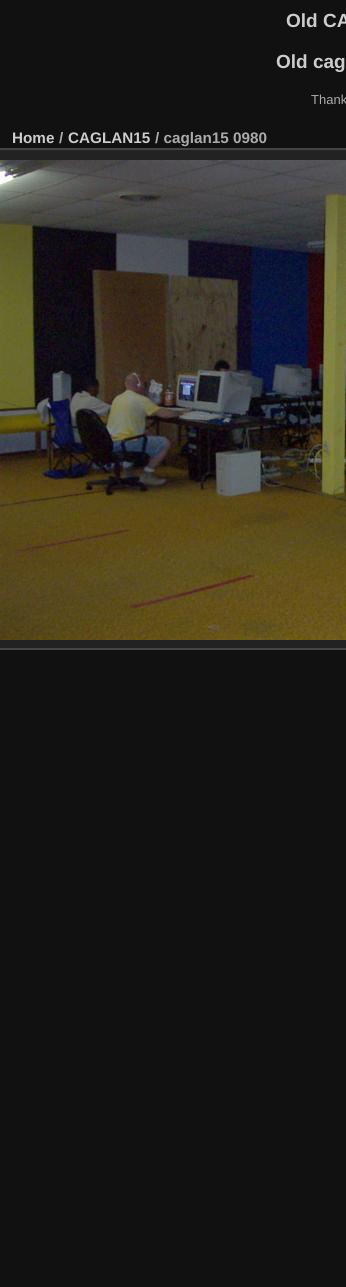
import math
import cairo

surface = cairo.ImageSurface(cairo.Format.RGB24, 346, 1287)
ctx = cairo.Context(surface)
options = cairo.FontOptions()
options.set_hint_metrics(cairo.HintMetrics.OFF)
options.set_hint_style(cairo.HintStyle.NONE)
ctx.set_font_options(options)
ctx.set_miter_limit(4)


def ink(r, g, b):
    ctx.set_source_rgb(r / 255, g / 255, b / 255)


def write(x, y, s, family, size, color, bold=False, italic=False):
    ctx.select_font_face(family, cairo.FontSlant.ITALIC if italic else cairo.FontSlant.NORMAL, cairo.FontWeight.BOLD if bold else cairo.FontWeight.NORMAL)
    ctx.set_font_size(size)
    ink(*color)
    ctx.move_to(x, y)
    ctx.show_text(s)


def block(x, y, w, h, *color):
    ink(*color)
    ctx.rectangle(x, y, w, h)
    ctx.fill()


def paste(path, x, y, w, h):
    ctx.save()
    ctx.set_source_surface(cairo.ImageSurface.create_from_png(path), x, y)
    ctx.rectangle(x, y, w, h)
    ctx.fill()
    ctx.restore()


s1 = dict(family="Liberation Sans", size=19, color=(204, 204, 204), bold=True)
s2 = dict(family="Liberation Sans", size=13, color=(170, 170, 170))
s3 = dict(family="Liberation Sans", size=15.25, color=(204, 204, 204), bold=True)
s4 = dict(family="Liberation Sans", size=15.25, color=(170, 170, 170), bold=True)

ink(17, 17, 17)
ctx.paint()
write(286, 27, "Old CA", **s1)
write(276, 68, "Old cag", **s1)
write(311, 104, "Thank", **s2)
block(0, 150, 346, 498, 34, 34, 34)
block(0, 648, 346, 2, 68, 68, 68)
block(0, 148, 346, 2, 68, 68, 68)
write(12, 143, "Home", **s3)
write(59, 143, "/", **s4)
write(68, 143, "CAGLAN15", **s3)
write(155, 143, "/ caglan15 0980", **s4)
paste("pic1.png", 0, 160, 346, 480)
surface.write_to_png("screenshot.png")
